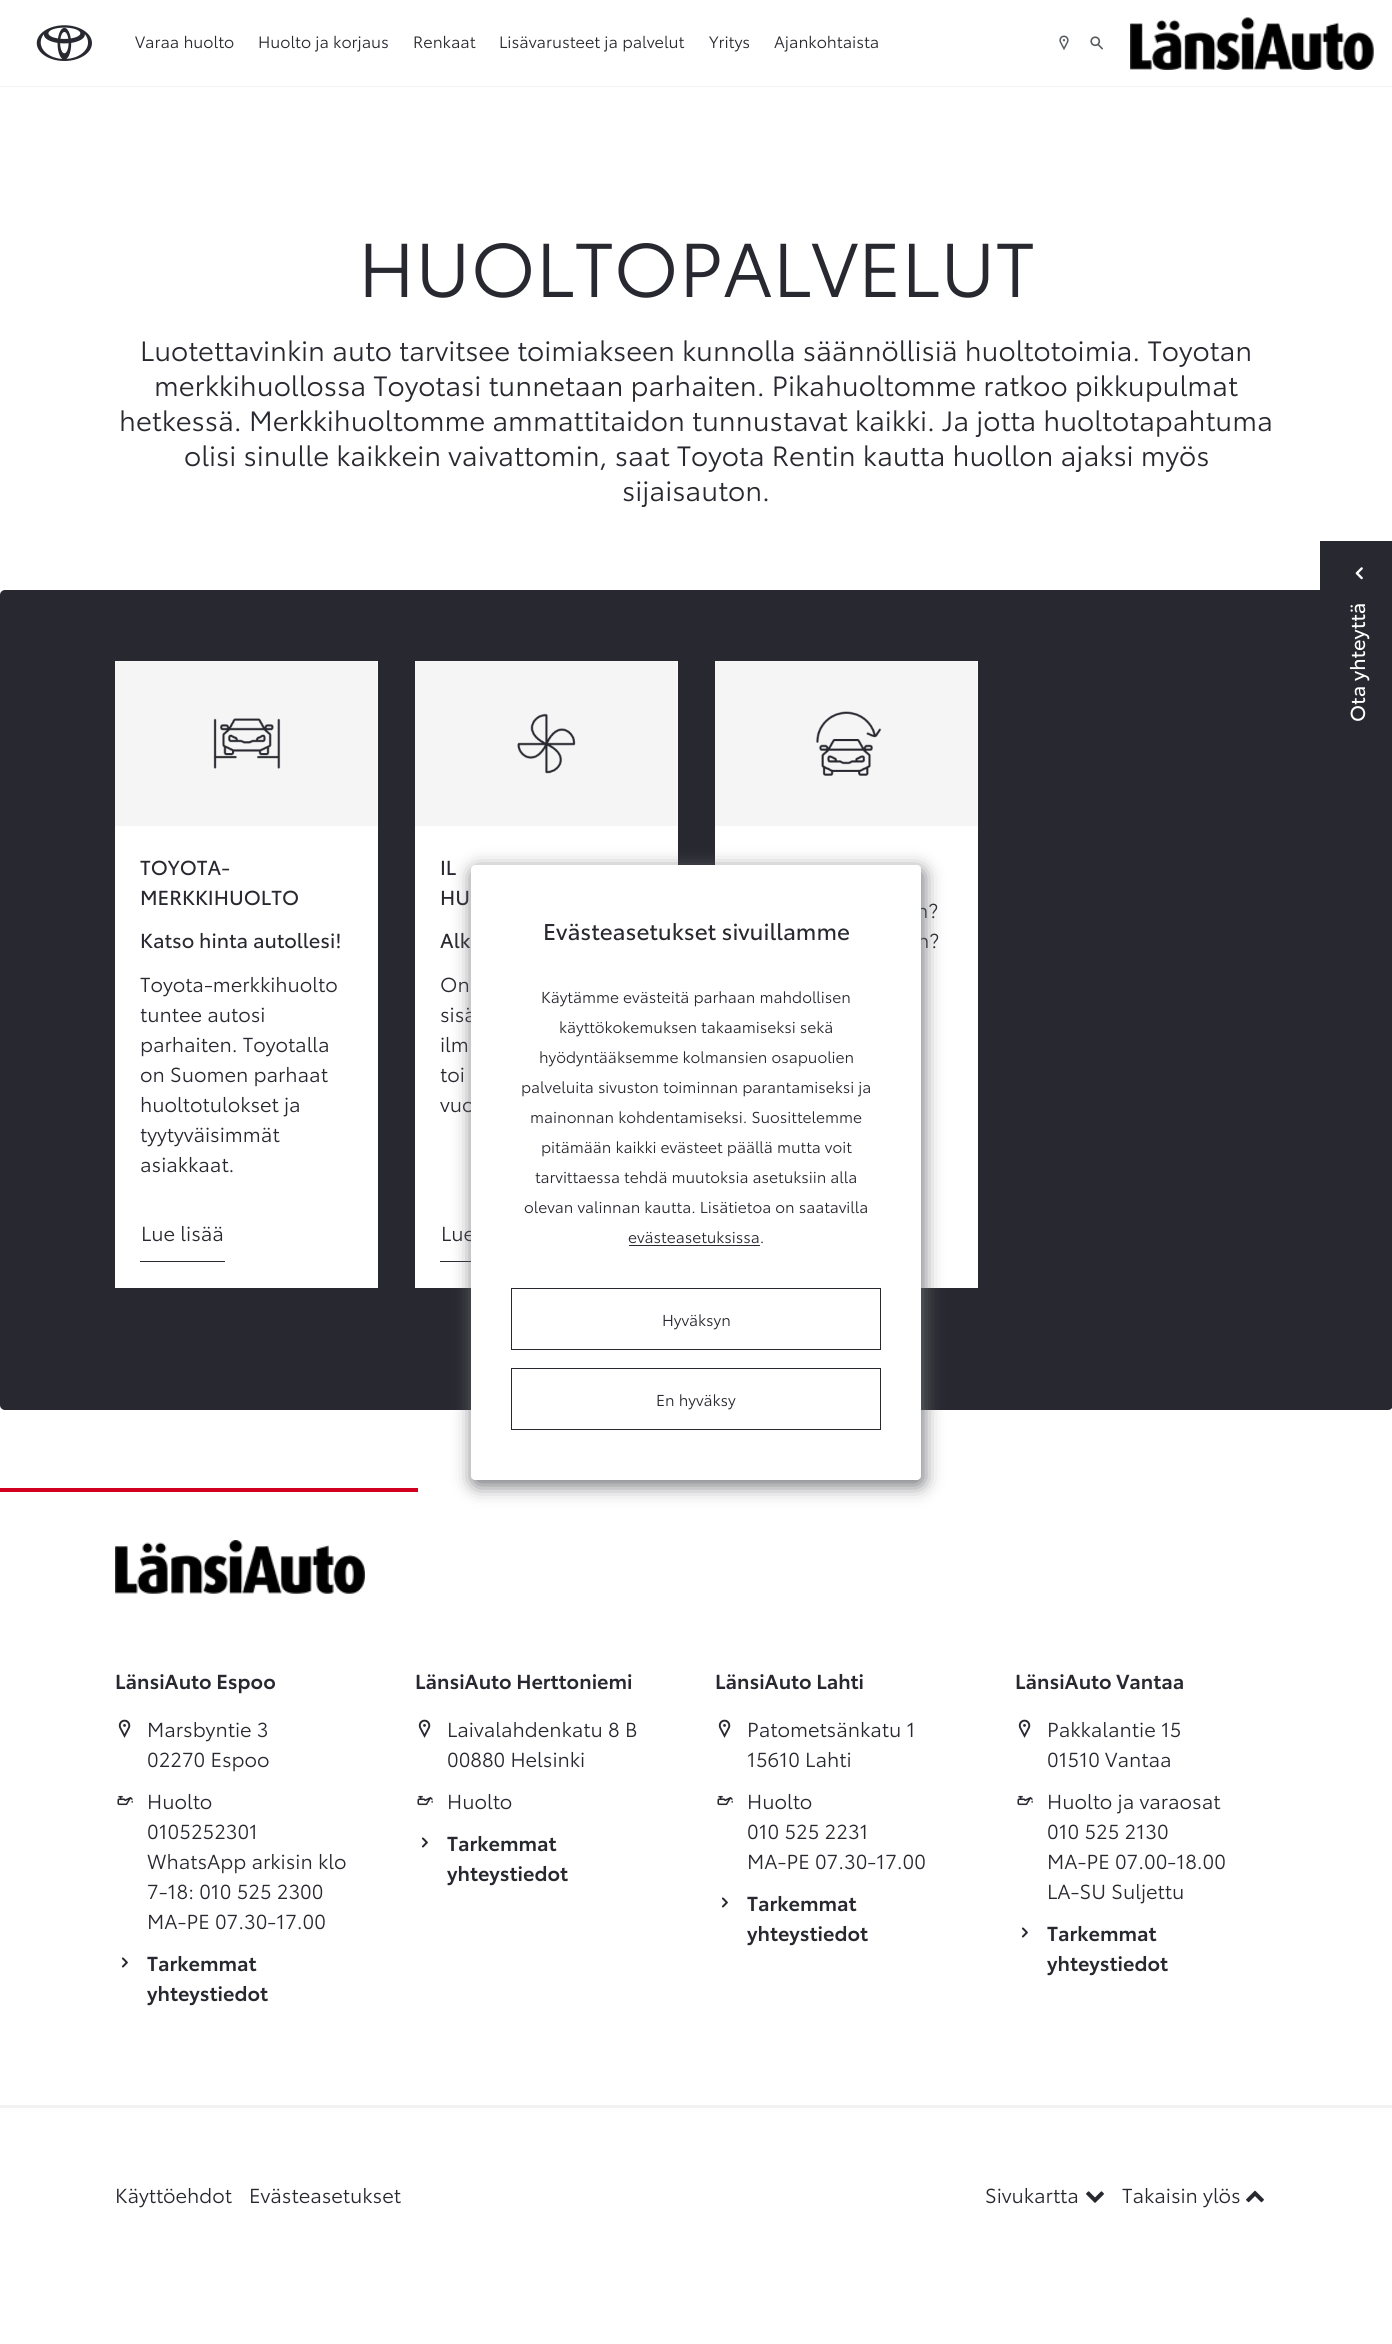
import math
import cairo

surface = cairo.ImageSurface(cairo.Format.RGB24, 1392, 2344)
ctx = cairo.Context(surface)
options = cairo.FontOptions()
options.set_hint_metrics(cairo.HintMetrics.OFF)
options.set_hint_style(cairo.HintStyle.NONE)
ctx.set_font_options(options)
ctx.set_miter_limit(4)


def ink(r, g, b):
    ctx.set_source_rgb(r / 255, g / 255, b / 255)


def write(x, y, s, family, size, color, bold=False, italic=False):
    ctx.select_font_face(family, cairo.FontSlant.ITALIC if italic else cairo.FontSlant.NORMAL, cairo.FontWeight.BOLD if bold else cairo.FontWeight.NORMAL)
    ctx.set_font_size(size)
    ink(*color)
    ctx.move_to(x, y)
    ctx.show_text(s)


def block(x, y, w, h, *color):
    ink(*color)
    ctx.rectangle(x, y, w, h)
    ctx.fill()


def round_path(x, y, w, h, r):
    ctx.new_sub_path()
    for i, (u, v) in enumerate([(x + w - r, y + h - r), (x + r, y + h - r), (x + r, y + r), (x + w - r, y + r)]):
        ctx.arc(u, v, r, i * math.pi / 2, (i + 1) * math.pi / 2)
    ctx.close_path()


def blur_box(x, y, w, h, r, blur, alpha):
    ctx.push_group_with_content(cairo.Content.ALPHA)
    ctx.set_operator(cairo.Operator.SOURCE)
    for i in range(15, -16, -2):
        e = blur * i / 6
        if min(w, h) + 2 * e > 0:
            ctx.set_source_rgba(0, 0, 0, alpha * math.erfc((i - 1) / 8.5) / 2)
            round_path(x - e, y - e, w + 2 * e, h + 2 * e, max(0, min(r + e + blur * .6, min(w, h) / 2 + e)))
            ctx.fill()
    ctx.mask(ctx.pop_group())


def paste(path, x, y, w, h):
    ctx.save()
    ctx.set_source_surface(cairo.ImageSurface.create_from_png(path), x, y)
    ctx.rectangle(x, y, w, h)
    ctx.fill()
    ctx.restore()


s1 = dict(family="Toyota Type", size=16.25, color=(40, 40, 48))
s2 = dict(family="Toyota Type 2", size=20, color=(255, 255, 255))
s3 = dict(family="Toyota Type", size=75, color=(40, 40, 48))
s4 = dict(family="Toyota Type", size=27.5, color=(40, 40, 48))
s5 = dict(family="Toyota Type 2", size=20, color=(40, 40, 48))
s6 = dict(family="Toyota Type", size=20, color=(40, 40, 48))
s7 = dict(family="Toyota Type 2", size=22.5, color=(40, 40, 48))
s8 = dict(family="Toyota Type", size=15.6, color=(40, 40, 48))
s9 = dict(family="Toyota Type SemiBold", size=20, color=(40, 40, 48))

ink(255, 255, 255)
ctx.paint()
block(0, 86, 1392, 1, 242, 242, 242)
paste("pic1.png", 36, 25, 56, 36)
write(135, 48, "Varaa huolto", **s1)
write(258, 48, "Huolto ja korjaus", **s1)
write(413, 48, "Renkaat", **s1)
write(499, 48, "Lisävarusteet ja palvelut", **s1)
write(709, 48, "Yritys", **s1)
write(774, 48, "Ajankohtaista", **s1)
paste("pic2.png", 1059, 35, 10, 16)
paste("pic3.png", 1090, 36, 13, 14)
paste("pic4.png", 1130, 17, 244, 53)
round_path(0, 590, 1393, 820, 5)
ctx.fill()
block(1320, 541, 72, 51, 40, 40, 48)
paste("pic5.png", 1355, 567, 8, 13)
ctx.save()
ctx.translate(1365, 722)
ctx.rotate(-90 * math.pi / 180)
write(0, 0, "Ota yhteyttä", **s2)
ctx.restore()
write(358, 297, "HUOLTOPALVELUT", **s3)
write(140, 361, "Luotettavinkin auto tarvitsee toimiakseen kunnolla säännöllisiä huoltotoimia. Toyotan", **s4)
write(154, 396, "merkkihuollossa Toyotasi tunnetaan parhaiten. Pikahuoltomme ratkoo pikkupulmat", **s4)
write(119, 431, "hetkessä. Merkkihuoltomme ammattitaidon tunnustavat kaikki. Ja jotta huoltotapahtuma", **s4)
write(184, 466, "olisi sinulle kaikkein vaivattomin, saat Toyota Rentin kautta huollon ajaksi myös", **s4)
write(622, 501, "sijaisauton.", **s4)
block(115, 661, 263, 627, 255, 255, 255)
paste("pic6.png", 115, 661, 263, 165)
write(140, 875, "TOYOTA-", **s5)
write(140, 905, "MERKKIHUOLTO", **s5)
write(140, 948, "Katso hinta autollesi!", **s5)
write(140, 992, "Toyota-merkkihuolto", **s6)
write(140, 1022, "tuntee autosi", **s6)
write(140, 1052, "parhaiten. Toyotalla", **s6)
write(140, 1082, "on Suomen parhaat", **s6)
write(140, 1112, "huoltotulokset ja", **s6)
write(140, 1142, "tyytyväisimmät", **s6)
write(140, 1172, "asiakkaat.", **s6)
block(140, 1261, 85, 1, 40, 40, 48)
write(141, 1241, "Lue lisää", **s6)
block(415, 661, 263, 627, 255, 255, 255)
paste("pic7.png", 415, 661, 263, 165)
write(440, 875, "IL", **s5)
write(440, 905, "HU", **s5)
write(440, 948, "Alk", **s5)
write(440, 992, "On", **s6)
write(440, 1022, "sisä", **s6)
write(440, 1052, "ilm", **s6)
write(440, 1082, "toi", **s6)
write(440, 1112, "vuo", **s6)
block(440, 1261, 31, 1, 40, 40, 48)
write(441, 1241, "Lue", **s6)
block(715, 661, 263, 627, 255, 255, 255)
paste("pic8.png", 715, 661, 263, 165)
write(916, 918, "n?", **s6)
write(917, 948, "n?", **s6)
ink(106, 107, 112)
blur_box(473, 870, 450, 615, 4, 9.5, 1)
ink(255, 255, 255)
round_path(471, 865, 450, 615, 4)
ctx.fill()
write(543, 940, "Evästeasetukset sivuillamme", **s7)
write(541, 1003, "Käytämme evästeitä parhaan mahdollisen", **s8)
write(559, 1033, "käyttökokemuksen takaamiseksi sekä", **s8)
write(539, 1063, "hyödyntääksemme kolmansien osapuolien", **s8)
write(521, 1093, "palveluita sivuston toiminnan parantamiseksi ja", **s8)
write(530, 1123, "mainonnan kohdentamiseksi. Suosittelemme", **s8)
write(541, 1153, "pitämään kaikki evästeet päällä mutta voit", **s8)
write(535, 1183, "tarvittaessa tehdä muutoksia asetuksiin alla", **s8)
write(524, 1213, "olevan valinnan kautta. Lisätietoa on saatavilla", **s8)
write(628, 1243, "evästeasetuksissa.", **s8)
block(629, 1245, 131, 1, 40, 40, 48)
ctx.rectangle(511.5, 1288.5, 369, 61)
ctx.set_line_width(1)
ctx.stroke()
write(662, 1326, "Hyväksyn", **s8)
ctx.rectangle(511.5, 1368.5, 369, 61)
ctx.stroke()
write(656, 1406, "En hyväksy", **s8)
block(0, 2105, 1392, 3, 242, 242, 242)
block(0, 1488, 418, 4, 210, 0, 30)
paste("pic9.png", 115, 1540, 250, 54)
write(115, 1689, "LänsiAuto Espoo", **s9)
paste("pic10.png", 118, 1719, 13, 19)
write(147, 1737, "Marsbyntie 3", **s6)
write(147, 1767, "02270 Espoo", **s6)
paste("pic11.png", 117, 1795, 16, 11)
write(147, 1809, "Huolto", **s6)
write(147, 1839, "0105252301", **s6)
write(147, 1869, "WhatsApp arkisin klo", **s6)
write(147, 1899, "7-18: 010 525 2300", **s6)
write(147, 1929, "MA-PE 07.30-17.00", **s6)
paste("pic12.png", 121, 1957, 7, 11)
write(147, 1971, "Tarkemmat", **s9)
write(147, 2001, "yhteystiedot", **s9)
write(415, 1689, "LänsiAuto Herttoniemi", **s9)
paste("pic10.png", 418, 1719, 13, 19)
write(447, 1737, "Laivalahdenkatu 8 B", **s6)
write(447, 1767, "00880 Helsinki", **s6)
paste("pic11.png", 417, 1795, 16, 11)
write(447, 1809, "Huolto", **s6)
paste("pic12.png", 421, 1837, 7, 11)
write(447, 1851, "Tarkemmat", **s9)
write(447, 1881, "yhteystiedot", **s9)
write(715, 1689, "LänsiAuto Lahti", **s9)
paste("pic10.png", 718, 1719, 13, 19)
write(747, 1737, "Patometsänkatu 1", **s6)
write(747, 1767, "15610 Lahti", **s6)
paste("pic11.png", 717, 1795, 16, 11)
write(747, 1809, "Huolto", **s6)
write(747, 1839, "010 525 2231", **s6)
write(747, 1869, "MA-PE 07.30-17.00", **s6)
paste("pic12.png", 721, 1897, 7, 11)
write(747, 1911, "Tarkemmat", **s9)
write(747, 1941, "yhteystiedot", **s9)
write(1015, 1689, "LänsiAuto Vantaa", **s9)
paste("pic10.png", 1018, 1719, 13, 19)
write(1047, 1737, "Pakkalantie 15", **s6)
write(1047, 1767, "01510 Vantaa", **s6)
paste("pic11.png", 1017, 1795, 16, 11)
write(1047, 1809, "Huolto ja varaosat", **s6)
write(1047, 1839, "010 525 2130", **s6)
write(1047, 1869, "MA-PE 07.00-18.00", **s6)
write(1047, 1899, "LA-SU Suljettu", **s6)
paste("pic12.png", 1021, 1927, 7, 11)
write(1047, 1941, "Tarkemmat", **s9)
write(1047, 1971, "yhteystiedot", **s9)
write(115, 2203, "Käyttöehdot", **s6)
write(249, 2203, "Evästeasetukset", **s6)
write(985, 2203, "Sivukartta", **s6)
paste("pic13.png", 1086, 2191, 18, 12)
write(1122, 2203, "Takaisin ylös", **s6)
paste("pic14.png", 1246, 2190, 18, 13)
surface.write_to_png("screenshot.png")
